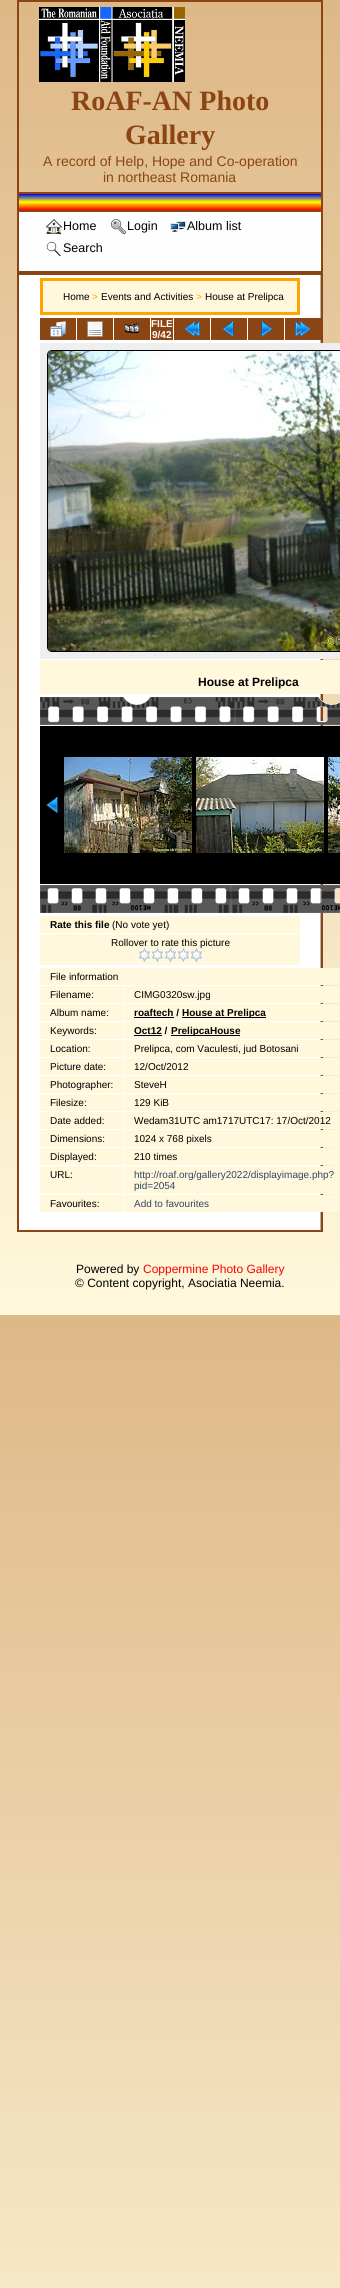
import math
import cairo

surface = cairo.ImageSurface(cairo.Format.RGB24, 340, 2288)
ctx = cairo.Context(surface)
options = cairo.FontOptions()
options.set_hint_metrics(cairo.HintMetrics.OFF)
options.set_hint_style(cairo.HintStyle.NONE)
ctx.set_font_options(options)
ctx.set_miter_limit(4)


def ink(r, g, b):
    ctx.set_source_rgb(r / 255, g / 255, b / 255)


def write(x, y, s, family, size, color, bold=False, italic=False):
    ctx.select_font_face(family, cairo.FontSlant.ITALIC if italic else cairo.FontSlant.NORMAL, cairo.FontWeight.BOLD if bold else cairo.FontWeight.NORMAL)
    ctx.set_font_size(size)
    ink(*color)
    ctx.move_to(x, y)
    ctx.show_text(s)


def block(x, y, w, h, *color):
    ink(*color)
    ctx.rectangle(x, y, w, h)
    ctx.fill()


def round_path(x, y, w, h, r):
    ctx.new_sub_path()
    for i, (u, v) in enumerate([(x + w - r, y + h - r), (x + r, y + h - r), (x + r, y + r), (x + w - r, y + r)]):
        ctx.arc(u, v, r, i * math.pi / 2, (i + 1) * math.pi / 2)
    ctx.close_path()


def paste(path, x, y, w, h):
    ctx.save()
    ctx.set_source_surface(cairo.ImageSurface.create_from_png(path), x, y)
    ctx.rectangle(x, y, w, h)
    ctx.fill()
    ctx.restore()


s1 = dict(family="Liberation Serif", size=28, color=(139, 69, 19), bold=True)
s2 = dict(family="Liberation Sans", size=14, color=(139, 69, 19))
s3 = dict(family="Liberation Sans", size=12.5, color=(0, 0, 0))
s4 = dict(family="Liberation Sans", size=10, color=(0, 0, 0))
s5 = dict(family="Liberation Sans", size=10, color=(255, 165, 0))
s6 = dict(family="Liberation Sans", size=10, color=(255, 255, 255), bold=True)
s7 = dict(family="Liberation Sans", size=12, color=(0, 0, 0), bold=True)
s8 = dict(family="Liberation Sans", size=10, color=(0, 0, 0), bold=True)
s9 = dict(family="Liberation Sans", size=10, color=(51, 68, 102))
s10 = dict(family="Liberation Sans", size=12, color=(0, 0, 0))
s11 = dict(family="Liberation Sans", size=12, color=(255, 0, 0))

ink(255, 255, 255)
ctx.paint()
gradient = cairo.LinearGradient(170, 1315, 170, 0)
gradient.add_color_stop_rgba(0, 1, 0.973, 0.863, 1)
gradient.add_color_stop_rgba(1, 0.871, 0.722, 0.529, 1)
ctx.set_source(gradient)
ctx.rectangle(0, 0, 340, 1315)
ctx.fill()
gradient = cairo.LinearGradient(170, 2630, 170, 1315)
gradient.add_color_stop_rgba(0, 1, 0.973, 0.863, 1)
gradient.add_color_stop_rgba(1, 0.871, 0.722, 0.529, 1)
ctx.set_source(gradient)
ctx.rectangle(0, 1315, 340, 973)
ctx.fill()
ctx.rectangle(18, 1, 304, 192)
ink(139, 69, 19)
ctx.stroke()
paste("pic1.png", 39, 7, 146, 75)
write(71, 110, "RoAF-AN Photo", **s1)
write(125, 144, "Gallery", **s1)
write(43, 166, "A record of Help, Hope and Co-operation", **s2)
write(103, 182, "in northeast Romania", **s2)
gradient = cairo.LinearGradient(170, 194, 170, 210)
gradient.add_color_stop_rgba(0, 0, 0, 1, 1)
gradient.add_color_stop_rgba(0.5, 1, 1, 0, 1)
gradient.add_color_stop_rgba(1, 1, 0, 0, 1)
ctx.set_source(gradient)
ctx.rectangle(19, 194, 302, 16)
ctx.fill()
block(321, 194, 2, 16, 139, 69, 19)
block(17, 194, 2, 16, 139, 69, 19)
ink(254, 254, 254)
ctx.rectangle(18, 211, 304, 61)
ctx.fill_preserve()
ink(139, 69, 19)
ctx.stroke()
paste("pic2.png", 170, 221, 16, 11)
write(187, 230, "Album list", **s3)
paste("pic3.png", 46, 241, 16, 15)
write(63, 252, "Search", **s3)
paste("pic4.png", 46, 219, 16, 16)
write(63, 230, "Home", **s3)
paste("pic5.png", 111, 219, 15, 15)
write(127, 230, "Login", **s3)
block(19, 275, 301, 955, 255, 255, 255)
ctx.rectangle(18, 274, 304, 957)
ink(139, 69, 19)
ctx.stroke()
block(320, 275, 1, 955, 183, 183, 183)
ink(255, 248, 220)
ctx.rectangle(41.5, 279.5, 257, 34)
ctx.fill_preserve()
ink(255, 165, 0)
ctx.set_line_width(3)
ctx.stroke()
write(63, 300, "Home", **s4)
write(92, 300, ">", **s5)
write(101, 300, "Events and Activities", **s4)
write(196, 300, ">", **s5)
write(205, 300, "House at Prelipca", **s4)
block(40, 318, 36, 22, 139, 69, 19)
paste("pic6.png", 50, 321, 16, 16)
block(77, 318, 36, 22, 139, 69, 19)
paste("pic7.png", 87, 321, 16, 16)
block(114, 318, 36, 22, 139, 69, 19)
paste("pic8.png", 124, 322, 16, 12)
block(151, 318, 22, 22, 139, 69, 19)
write(151, 327, "FILE", **s6)
write(152, 338, "9/42", **s6)
block(174, 318, 36, 22, 139, 69, 19)
paste("pic9.png", 184, 321, 16, 16)
block(211, 318, 36, 22, 139, 69, 19)
paste("pic10.png", 222, 321, 12, 16)
block(248, 318, 36, 22, 139, 69, 19)
paste("pic11.png", 261, 321, 12, 16)
block(285, 318, 36, 22, 139, 69, 19)
paste("pic12.png", 295, 321, 16, 16)
block(40, 343, 300, 316, 239, 239, 239)
round_path(47.5, 350.5, 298, 301, 4.5)
ink(0, 0, 0)
ctx.set_line_width(1)
ctx.stroke()
paste("pic13.png", 48, 351, 292, 300)
block(40, 660, 300, 34, 255, 248, 220)
write(198, 686, "House at Prelipca", **s7)
paste("pic14.png", 40, 697, 300, 28)
block(40, 726, 300, 158, 0, 0, 0)
paste("pic15.png", 46, 797, 12, 16)
paste("pic16.png", 64, 757, 128, 96)
paste("pic17.png", 196, 757, 128, 96)
paste("pic18.png", 328, 757, 12, 96)
paste("pic19.png", 40, 885, 300, 28)
block(40, 916, 260, 17, 255, 248, 220)
write(50, 928, "Rate this file", **s8)
write(112, 928, "(No vote yet)", **s4)
block(40, 934, 260, 31, 255, 248, 220)
write(111, 946, "Rollover to rate this picture", **s4)
paste("pic20.png", 138, 948, 13, 14)
paste("pic20.png", 151, 948, 13, 14)
paste("pic20.png", 164, 948, 13, 14)
paste("pic20.png", 177, 948, 13, 14)
paste("pic21.png", 190, 948, 13, 14)
block(40, 968, 300, 17, 255, 248, 220)
write(50, 980, "File information", **s4)
block(40, 986, 83, 17, 255, 248, 220)
write(50, 998, "Filename:", **s4)
block(124, 986, 216, 17, 255, 248, 220)
write(134, 998, "CIMG0320sw.jpg", **s4)
block(40, 1004, 83, 17, 255, 248, 220)
write(50, 1016, "Album name:", **s4)
block(124, 1004, 216, 17, 255, 248, 220)
write(134, 1016, "roaftech /", **s8)
block(134, 1017, 40, 1, 0, 0, 0)
block(182, 1017, 84, 1, 0, 0, 0)
write(182, 1016, "House at Prelipca", **s8)
block(40, 1022, 83, 17, 255, 248, 220)
write(50, 1034, "Keywords:", **s4)
block(124, 1022, 216, 17, 255, 248, 220)
write(134, 1034, "Oct12 /", **s8)
block(134, 1035, 28, 1, 0, 0, 0)
block(171, 1035, 69, 1, 0, 0, 0)
write(171, 1034, "PrelipcaHouse", **s8)
block(40, 1040, 83, 17, 255, 248, 220)
write(50, 1052, "Location:", **s4)
block(124, 1040, 216, 17, 255, 248, 220)
write(134, 1052, "Prelipca, com Vaculesti, jud Botosani", **s4)
block(40, 1058, 83, 17, 255, 248, 220)
write(50, 1070, "Picture date:", **s4)
block(124, 1058, 216, 17, 255, 248, 220)
write(134, 1070, "12/Oct/2012", **s4)
block(40, 1076, 83, 17, 255, 248, 220)
write(50, 1088, "Photographer:", **s4)
block(124, 1076, 216, 17, 255, 248, 220)
write(134, 1088, "SteveH", **s4)
block(40, 1094, 83, 17, 255, 248, 220)
write(50, 1106, "Filesize:", **s4)
block(124, 1094, 216, 17, 255, 248, 220)
write(134, 1106, "129 KiB", **s4)
block(40, 1112, 83, 17, 255, 248, 220)
write(50, 1124, "Date added:", **s4)
block(124, 1112, 216, 17, 255, 248, 220)
write(134, 1124, "Wedam31UTC am1717UTC17: 17/Oct/2012", **s4)
block(40, 1130, 83, 17, 255, 248, 220)
write(50, 1142, "Dimensions:", **s4)
block(124, 1130, 216, 17, 255, 248, 220)
write(134, 1142, "1024 x 768 pixels", **s4)
block(40, 1148, 83, 17, 255, 248, 220)
write(50, 1160, "Displayed:", **s4)
block(124, 1148, 216, 17, 255, 248, 220)
write(134, 1160, "210 times", **s4)
block(40, 1166, 83, 28, 255, 248, 220)
write(50, 1178, "URL:", **s4)
block(124, 1166, 216, 28, 255, 248, 220)
write(134, 1178, "http://roaf.org/gallery2022/displayimage.php?", **s9)
write(134, 1189, "pid=2054", **s9)
block(40, 1195, 83, 17, 255, 248, 220)
write(50, 1207, "Favourites:", **s4)
block(124, 1195, 216, 17, 255, 248, 220)
write(134, 1207, "Add to favourites", **s9)
write(76, 1273, "Powered by", **s10)
write(143, 1273, "Coppermine Photo Gallery", **s11)
write(75, 1287, "© Content copyright, Asociatia Neemia.", **s10)
surface.write_to_png("screenshot.png")
